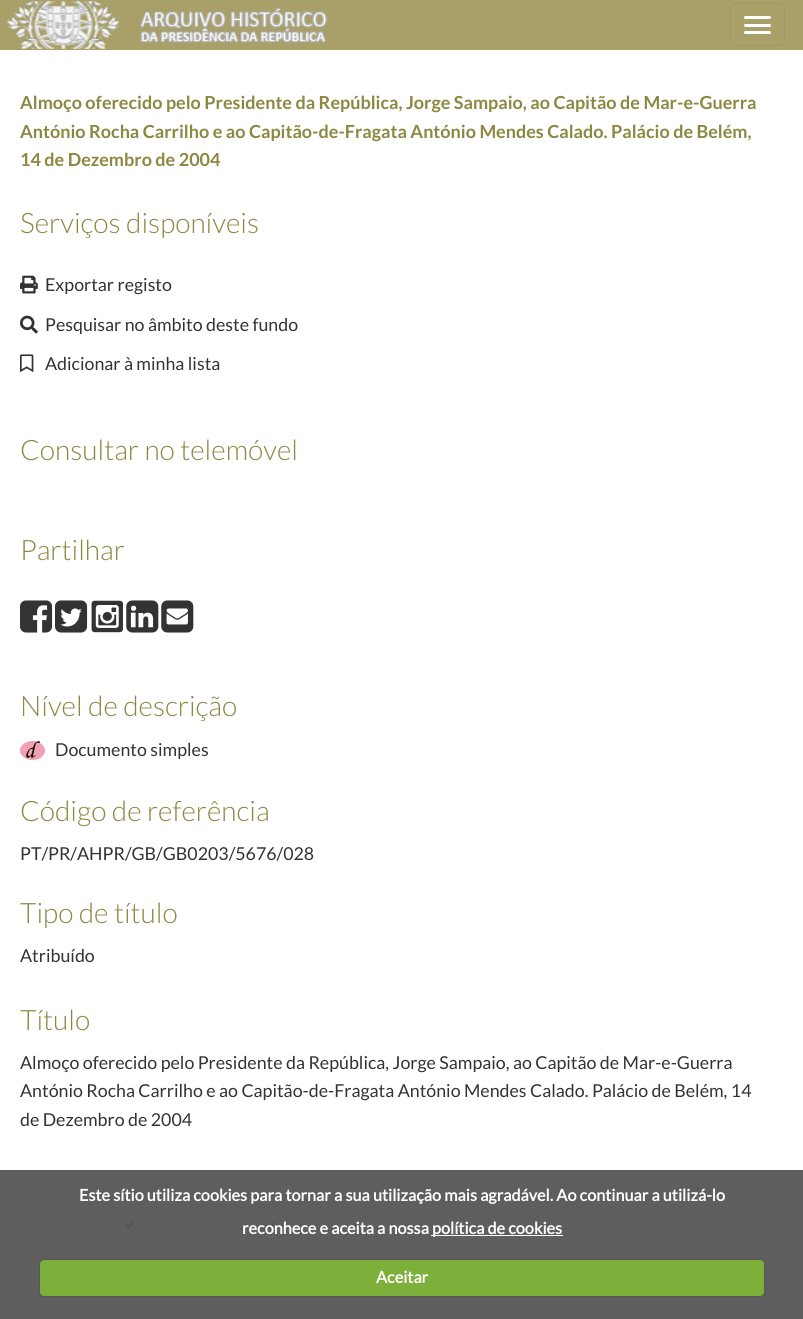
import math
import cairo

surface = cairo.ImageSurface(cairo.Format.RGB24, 803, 1319)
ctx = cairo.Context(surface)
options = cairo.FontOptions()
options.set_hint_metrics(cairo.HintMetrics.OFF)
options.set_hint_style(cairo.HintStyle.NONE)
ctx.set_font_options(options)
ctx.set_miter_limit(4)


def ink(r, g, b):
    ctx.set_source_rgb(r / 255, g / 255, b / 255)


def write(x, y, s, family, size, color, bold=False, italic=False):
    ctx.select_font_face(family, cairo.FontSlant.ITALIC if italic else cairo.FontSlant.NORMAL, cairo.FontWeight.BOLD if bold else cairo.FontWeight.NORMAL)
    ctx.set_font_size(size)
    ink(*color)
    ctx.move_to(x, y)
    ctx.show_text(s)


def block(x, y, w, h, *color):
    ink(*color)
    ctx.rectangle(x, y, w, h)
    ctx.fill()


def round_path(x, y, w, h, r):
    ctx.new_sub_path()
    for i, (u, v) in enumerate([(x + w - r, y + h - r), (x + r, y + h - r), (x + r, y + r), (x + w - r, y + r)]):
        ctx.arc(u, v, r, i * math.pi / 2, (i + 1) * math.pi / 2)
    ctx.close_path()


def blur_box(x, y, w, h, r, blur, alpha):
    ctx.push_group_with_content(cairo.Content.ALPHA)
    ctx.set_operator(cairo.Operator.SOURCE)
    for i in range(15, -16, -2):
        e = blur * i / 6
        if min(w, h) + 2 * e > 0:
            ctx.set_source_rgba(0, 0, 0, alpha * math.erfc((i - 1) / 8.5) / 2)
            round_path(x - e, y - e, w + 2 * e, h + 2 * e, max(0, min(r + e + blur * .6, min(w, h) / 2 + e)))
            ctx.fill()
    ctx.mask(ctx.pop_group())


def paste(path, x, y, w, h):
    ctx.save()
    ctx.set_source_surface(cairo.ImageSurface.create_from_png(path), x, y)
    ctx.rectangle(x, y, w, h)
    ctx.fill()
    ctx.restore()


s1 = dict(family="Lato", size=18, color=(140, 135, 65), bold=True)
s2 = dict(family="Lato Light", size=28.1, color=(140, 135, 65))
s3 = dict(family="Lato", size=17.8, color=(51, 51, 51))
s4 = dict(family="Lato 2", size=16.25, color=(255, 255, 255), bold=True)

ink(255, 255, 255)
ctx.paint()
block(0, 1170, 803, 149, 94, 94, 94)
block(0, 0, 803, 50, 168, 160, 104)
paste("pic1.png", 7, 1, 321, 48)
round_path(730.5, 3.5, 54, 42, 4.5)
ink(160, 152, 99)
ctx.set_line_width(1)
ctx.stroke()
ink(255, 255, 255)
round_path(744, 16, 27, 3, 1.5)
ctx.fill()
round_path(744, 24, 27, 3, 1.5)
ctx.fill()
round_path(744, 31, 27, 3, 1.5)
ctx.fill()
write(20, 109, "Almoço oferecido pelo Presidente da República, Jorge Sampaio, ao Capitão de Mar-e-Guerra", **s1)
write(20, 138, "António Rocha Carrilho e ao Capitão-de-Fragata António Mendes Calado. Palácio de Belém,", **s1)
write(20, 166, "14 de Dezembro de 2004", **s1)
write(20, 233, "Serviços disponíveis", **s2)
paste("pic2.png", 20, 275, 18, 19)
write(45, 291, "Exportar registo", **s3)
paste("pic3.png", 20, 315, 18, 19)
write(45, 331, "Pesquisar no âmbito deste fundo", **s3)
paste("pic4.png", 20, 354, 14, 19)
write(45, 370, "Adicionar à minha lista", **s3)
write(20, 460, "Consultar no telemóvel", **s2)
write(20, 560, "Partilhar", **s2)
paste("pic5.png", 20, 600, 33, 33)
paste("pic6.png", 55, 600, 33, 33)
paste("pic7.png", 91, 600, 32, 33)
paste("pic8.png", 126, 600, 33, 33)
paste("pic9.png", 161, 600, 33, 33)
write(20, 716, "Nível de descrição", **s2)
paste("pic10.png", 20, 741, 25, 19)
write(55, 756, "Documento simples", **s3)
write(20, 821, "Código de referência", **s2)
write(20, 860, "PT/PR/AHPR/GB/GB0203/5676/028", **s3)
write(20, 923, "Tipo de título", **s2)
write(20, 962, "Atribuído", **s3)
write(20, 1030, "Título", **s2)
write(20, 1069, "Almoço oferecido pelo Presidente da República, Jorge Sampaio, ao Capitão de Mar-e-Guerra", **s3)
write(20, 1097, "António Rocha Carrilho e ao Capitão-de-Fragata António Mendes Calado. Palácio de Belém, 14", **s3)
write(20, 1126, "de Dezembro de 2004", **s3)
paste("pic11.png", 125, 1221, 10, 8)
paste("pic12.png", 266, 1221, 10, 8)
write(79, 1201, "Este sítio utiliza cookies para tornar a sua utilização mais agradável. Ao continuar a utilizá-lo", **s4)
write(242, 1234, "reconhece e aceita a nossa", **s4)
block(431, 1235, 132, 1, 255, 255, 255)
write(432, 1234, "política de cookies", **s4)
ink(0, 0, 0)
blur_box(40, 1260, 724, 36, 4, 1, 0.25)
ink(125, 175, 59)
round_path(40, 1260, 724, 36, 4)
ctx.fill()
write(376, 1283, "Aceitar", **s4)
surface.write_to_png("screenshot.png")
